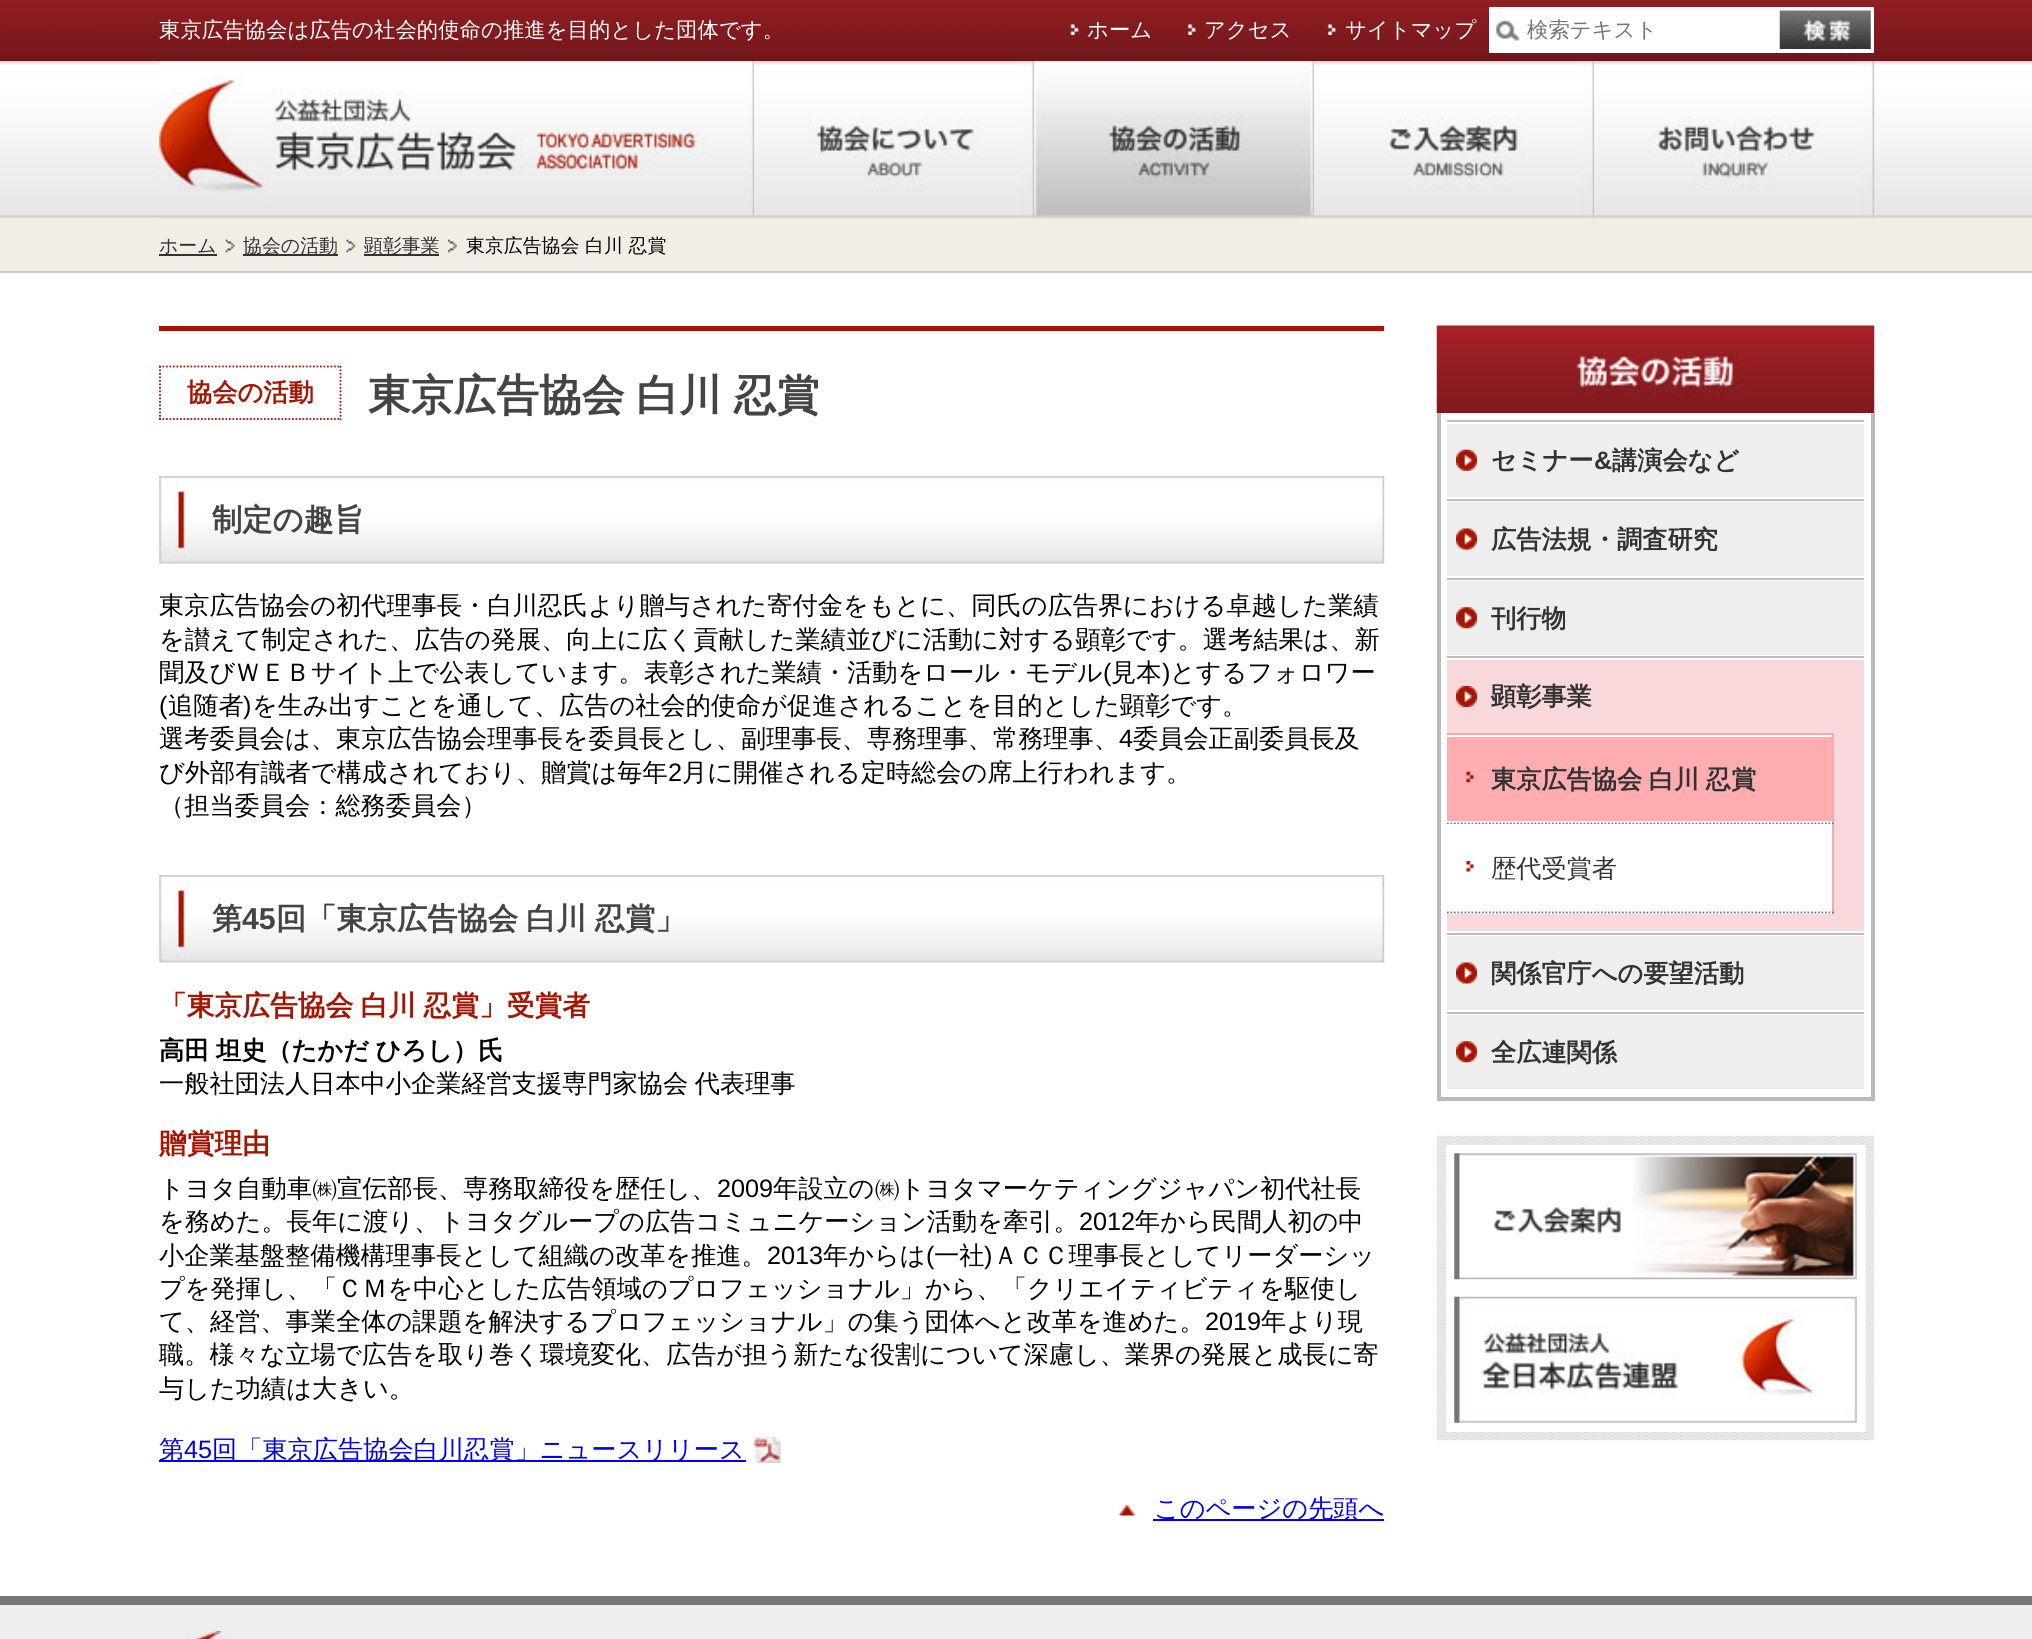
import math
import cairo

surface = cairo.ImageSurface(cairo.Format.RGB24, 2032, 1639)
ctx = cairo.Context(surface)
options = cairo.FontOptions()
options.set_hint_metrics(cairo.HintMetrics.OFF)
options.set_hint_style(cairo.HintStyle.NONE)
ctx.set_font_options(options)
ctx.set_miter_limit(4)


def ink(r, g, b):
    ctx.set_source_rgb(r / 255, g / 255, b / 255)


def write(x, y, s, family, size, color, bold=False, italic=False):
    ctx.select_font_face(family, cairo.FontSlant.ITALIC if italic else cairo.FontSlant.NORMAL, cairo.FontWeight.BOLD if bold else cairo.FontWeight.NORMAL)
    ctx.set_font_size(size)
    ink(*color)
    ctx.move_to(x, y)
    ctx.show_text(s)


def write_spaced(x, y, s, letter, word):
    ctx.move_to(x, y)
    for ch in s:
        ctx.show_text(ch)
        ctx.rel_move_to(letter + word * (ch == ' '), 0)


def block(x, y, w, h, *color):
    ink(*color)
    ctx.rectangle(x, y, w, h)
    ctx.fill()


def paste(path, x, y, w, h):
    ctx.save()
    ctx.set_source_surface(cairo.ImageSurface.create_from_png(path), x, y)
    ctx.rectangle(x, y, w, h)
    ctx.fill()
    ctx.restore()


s1 = dict(family="WenQuanYi Zen Hei Medium", size=21.4, color=(255, 255, 255))
s2 = dict(family="WenQuanYi Zen Hei Medium", size=21.4, color=(117, 117, 117))
s3 = dict(family="WenQuanYi Zen Hei Medium", size=18.9, color=(51, 51, 51))
s4 = dict(family="WenQuanYi Zen Hei Medium", size=18.9, color=(0, 0, 0))
s5 = dict(family="WenQuanYi Zen Hei", size=25.2, color=(165, 21, 2), bold=True)
s6 = dict(family="WenQuanYi Zen Hei", size=30.25, color=(68, 68, 68), bold=True)
s7 = dict(family="WenQuanYi Zen Hei Medium", size=25.2, color=(0, 0, 0))
s8 = dict(family="Liberation Sans", size=25.2, color=(0, 0, 0))
s9 = dict(family="Liberation Sans", size=30.25, color=(68, 68, 68), bold=True)
s10 = dict(family="WenQuanYi Zen Hei", size=27.75, color=(165, 21, 2), bold=True)
s11 = dict(family="WenQuanYi Zen Hei Medium", size=25.2, color=(0, 0, 238))
s12 = dict(family="Liberation Sans", size=25.2, color=(0, 0, 238))
s13 = dict(family="WenQuanYi Zen Hei", size=25.2, color=(51, 51, 51), bold=True)
s14 = dict(family="Liberation Sans", size=25.2, color=(51, 51, 51), bold=True)
s15 = dict(family="WenQuanYi Zen Hei Medium", size=25.2, color=(51, 51, 51))

ink(255, 255, 255)
ctx.paint()
paste("pic1.png", 0, 0, 2032, 62)
write(159, 37, "東京広告協会は広告の社会的使命の推進を目的とした団体です。", **s1)
paste("pic2.png", 1069, 24, 11, 11)
write(1087, 37, "ホーム", **s1)
paste("pic3.png", 1186, 24, 11, 11)
write(1204, 37, "アクセス", **s1)
paste("pic4.png", 1326, 24, 11, 11)
write(1345, 37, "サイトマップ", **s1)
block(1489, 7, 385, 46, 255, 255, 255)
paste("pic5.png", 1495, 20, 25, 21)
write(1527, 37, "検索テキスト", **s2)
paste("pic6.png", 1779, 10, 92, 39)
paste("pic7.png", 0, 61, 2032, 158)
paste("pic8.png", 159, 61, 596, 158)
paste("pic9.png", 754, 61, 281, 158)
paste("pic10.png", 1034, 61, 281, 158)
paste("pic11.png", 1314, 61, 281, 158)
paste("pic12.png", 1594, 61, 281, 158)
block(0, 219, 2032, 52, 242, 238, 230)
block(0, 271, 2032, 2, 204, 204, 204)
write(159, 252, "ホーム", **s3)
block(159, 254, 58, 2, 51, 51, 51)
paste("pic13.png", 225, 239, 10, 14)
block(243, 254, 95, 2, 51, 51, 51)
write(243, 252, "協会の活動", **s3)
paste("pic14.png", 346, 239, 10, 14)
block(364, 254, 75, 2, 51, 51, 51)
write(364, 252, "顕彰事業", **s3)
paste("pic15.png", 448, 239, 9, 14)
write(466, 252, "東京広告協会 白川 忍賞", **s4)
block(159, 326, 1225, 5, 165, 21, 2)
ctx.new_path()
ctx.move_to(159, 366.5)
ctx.line_to(341, 366.5)
ctx.set_line_width(1.8)
ctx.set_dash([1.75, 1.75])
ctx.stroke()
ctx.new_path()
ctx.move_to(340.5, 366)
ctx.line_to(340.5, 420)
ctx.stroke()
ctx.new_path()
ctx.move_to(159, 419)
ctx.line_to(341, 419)
ctx.stroke()
ctx.new_path()
ctx.move_to(160, 366)
ctx.line_to(160, 420)
ctx.stroke()
write(187, 401, "協会の活動", **s5)
ctx.set_font_size(42.75)
ink(68, 68, 68)
write_spaced(368, 410, "東京広告協会 白川 忍賞", 0, -1)
paste("pic16.png", 159, 476, 1226, 88)
write(212, 530, "制定の趣旨", **s6)
write(159, 614, "東京広告協会の初代理事長・白川忍氏より贈与された寄付金をもとに、同氏の広告界における卓越した業績", **s7)
write(159, 648, "を讃えて制定された、広告の発展、向上に広く貢献した業績並びに活動に対する顕彰です。選考結果は、新", **s7)
write(159, 681, "聞及びＷＥＢサイト上で公表しています。表彰された業績・活動をロール・モデル", **s7)
write(1103, 681, "(", **s8)
write(1111, 681, "見本", **s7)
write(1162, 681, ")", **s8)
write(1170, 681, "とするフォロワー", **s7)
write(159, 714, "(", **s8)
write(168, 714, "追随者", **s7)
write(243, 714, ")", **s8)
write(252, 714, "を生み出すことを通して、広告の社会的使命が促進されることを目的とした顕彰です。", **s7)
write(159, 747, "選考委員会は、東京広告協会理事長を委員長とし、副理事長、専務理事、常務理事、", **s7)
write(1119, 747, "4", **s8)
write(1133, 747, "委員会正副委員長及", **s7)
write(159, 781, "び外部有識者で構成されており、贈賞は毎年", **s7)
write(668, 781, "2", **s8)
write(682, 781, "月に開催される定時総会の席上行われます。", **s7)
write(159, 814, "（担当委員会：総務委員会）", **s7)
paste("pic16.png", 159, 875, 1226, 88)
write(212, 929, "第", **s6)
write(242, 929, "45", **s9)
ctx.select_font_face("WenQuanYi Zen Hei", cairo.FontSlant.NORMAL, cairo.FontWeight.BOLD)
write_spaced(276, 929, "回「東京広告協会 白川 忍賞」", 0, -1)
ctx.set_font_size(27.75)
ink(165, 21, 2)
write_spaced(159, 1015, "「東京広告協会 白川 忍賞」受賞者", 0, -1)
ctx.set_font_size(25.2)
ink(0, 0, 0)
write_spaced(159, 1059, "高田 坦史（たかだ ひろし）氏", 0, -1)
ctx.select_font_face("WenQuanYi Zen Hei Medium")
write_spaced(159, 1092, "一般社団法人日本中小企業経営支援専門家協会 代表理事", 0, -1)
write(159, 1153, "贈賞理由", **s10)
write(159, 1197, "トヨタ自動車㈱宣伝部長、専務取締役を歴任し、", **s7)
write(717, 1197, "2009", **s8)
write(773, 1197, "年設立の㈱トヨタマーケティングジャパン初代社長", **s7)
write(159, 1230, "を務めた。長年に渡り、トヨタグループの広告コミュニケーション活動を牽引。", **s7)
write(1079, 1230, "2012", **s8)
write(1135, 1230, "年から民間人初の中", **s7)
write(159, 1264, "小企業基盤整備機構理事長として組織の改革を推進。", **s7)
write(767, 1264, "2013", **s8)
write(823, 1264, "年からは", **s7)
write(926, 1264, "(", **s8)
write(934, 1264, "一社", **s7)
write(984, 1264, ")", **s8)
write(993, 1264, "ＡＣＣ理事長としてリーダーシッ", **s7)
write(159, 1297, "プを発揮し、「ＣＭを中心とした広告領域のプロフェッショナル」から、「クリエイティビティを駆使し", **s7)
write(159, 1330, "て、経営、事業全体の課題を解決するプロフェッショナル」の集う団体へと改革を進めた。", **s7)
write(1205, 1330, "2019", **s8)
write(1261, 1330, "年より現", **s7)
write(159, 1363, "職。様々な立場で広告を取り巻く環境変化、広告が担う新たな役割について深慮し、業界の発展と成長に寄", **s7)
write(159, 1397, "与した功績は大きい。", **s7)
block(159, 1460, 587, 2, 0, 0, 238)
write(159, 1458, "第", **s11)
write(184, 1458, "45", **s12)
write(212, 1458, "回「東京広告協会白川忍賞」ニュースリリース", **s11)
paste("pic17.png", 754, 1436, 27, 27)
paste("pic18.png", 1118, 1505, 18, 11)
block(1153, 1519, 231, 2, 0, 0, 238)
write(1154, 1517, "このページの先頭へ", **s11)
paste("pic19.png", 1436, 325, 439, 88)
block(1871, 413, 4, 688, 187, 187, 187)
block(1437, 1097, 437, 4, 187, 187, 187)
block(1437, 413, 4, 688, 187, 187, 187)
block(1447, 420, 417, 2, 190, 190, 190)
block(1447, 424, 417, 73, 238, 238, 238)
paste("pic20.png", 1456, 449, 21, 22)
write(1491, 469, "セミナー", **s13)
write(1594, 469, "&", **s14)
write(1612, 469, "講演会など", **s13)
block(1447, 499, 417, 2, 190, 190, 190)
block(1447, 502, 417, 74, 238, 238, 238)
paste("pic21.png", 1456, 528, 21, 22)
write(1491, 548, "広告法規・調査研究", **s13)
block(1447, 578, 417, 2, 190, 190, 190)
block(1447, 581, 417, 74, 238, 238, 238)
paste("pic22.png", 1456, 607, 21, 22)
write(1491, 627, "刊行物", **s13)
block(1447, 656, 417, 2, 190, 190, 190)
block(1447, 660, 417, 271, 248, 216, 218)
paste("pic23.png", 1456, 686, 21, 21)
write(1491, 705, "顕彰事業", **s13)
block(1447, 735, 385, 89, 255, 255, 255)
block(1447, 733, 387, 2, 239, 171, 176)
block(1832, 733, 2, 91, 239, 171, 176)
ctx.new_path()
ctx.move_to(1447, 823.5)
ctx.line_to(1834, 823.5)
ink(119, 119, 119)
ctx.stroke()
block(1447, 737, 385, 84, 255, 173, 176)
paste("pic24.png", 1466, 771, 8, 12)
ink(51, 51, 51)
write_spaced(1491, 788, "東京広告協会 白川 忍賞", 0, -1)
block(1447, 824, 385, 90, 255, 255, 255)
block(1832, 824, 2, 90, 239, 171, 176)
ctx.new_path()
ctx.move_to(1447, 912.5)
ctx.line_to(1834, 912.5)
ink(119, 119, 119)
ctx.stroke()
paste("pic25.png", 1466, 861, 8, 11)
write(1491, 877, "歴代受賞者", **s15)
block(1447, 933, 417, 2, 190, 190, 190)
block(1447, 936, 417, 74, 238, 238, 238)
paste("pic21.png", 1456, 962, 21, 22)
write(1491, 982, "関係官庁への要望活動", **s13)
block(1447, 1012, 417, 2, 190, 190, 190)
block(1447, 1015, 417, 74, 238, 238, 238)
paste("pic22.png", 1456, 1041, 21, 22)
write(1491, 1061, "全広連関係", **s13)
paste("pic26.png", 1436, 1135, 439, 306)
block(1446, 1145, 420, 287, 255, 255, 255)
paste("pic27.png", 1454, 1153, 403, 127)
paste("pic28.png", 1454, 1296, 403, 127)
block(0, 1596, 2032, 9, 119, 119, 119)
block(0, 1605, 2032, 34, 238, 238, 238)
paste("pic29.png", 187, 1631, 42, 8)
surface.write_to_png("screenshot.png")
